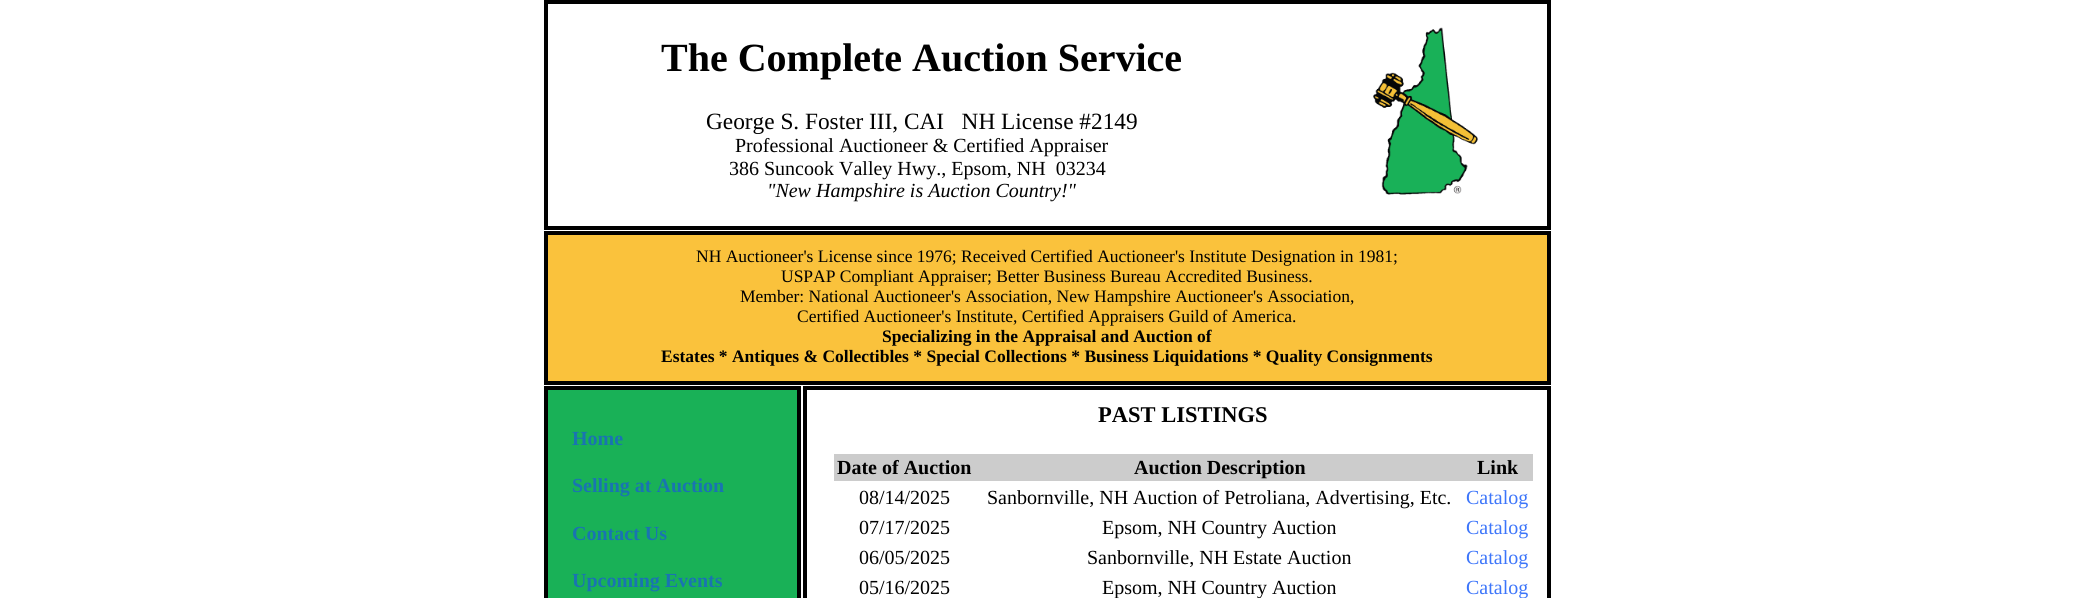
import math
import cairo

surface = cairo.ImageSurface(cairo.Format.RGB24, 2092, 598)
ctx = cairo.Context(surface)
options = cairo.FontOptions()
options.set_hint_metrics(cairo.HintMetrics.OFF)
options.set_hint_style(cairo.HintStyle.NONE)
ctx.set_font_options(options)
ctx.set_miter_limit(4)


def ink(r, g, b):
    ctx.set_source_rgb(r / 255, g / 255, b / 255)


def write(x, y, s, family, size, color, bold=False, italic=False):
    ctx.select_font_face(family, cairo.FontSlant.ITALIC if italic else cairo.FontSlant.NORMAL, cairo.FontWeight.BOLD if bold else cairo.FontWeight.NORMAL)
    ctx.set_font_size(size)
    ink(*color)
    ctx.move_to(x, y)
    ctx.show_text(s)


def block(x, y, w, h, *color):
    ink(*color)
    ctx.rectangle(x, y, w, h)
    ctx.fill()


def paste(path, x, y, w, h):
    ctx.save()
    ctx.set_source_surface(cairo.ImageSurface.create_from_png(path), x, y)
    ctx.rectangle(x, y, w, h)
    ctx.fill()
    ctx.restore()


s1 = dict(family="Liberation Serif", size=40, color=(0, 0, 0), bold=True)
s2 = dict(family="Liberation Serif", size=23.3, color=(0, 0, 0))
s3 = dict(family="Liberation Serif", size=20, color=(0, 0, 0))
s4 = dict(family="Liberation Serif", size=20, color=(0, 0, 0), italic=True)
s5 = dict(family="Liberation Serif", size=17.5, color=(0, 0, 0))
s6 = dict(family="Liberation Serif", size=17.5, color=(0, 0, 0), bold=True)
s7 = dict(family="Liberation Serif", size=20, color=(25, 116, 177), bold=True)
s8 = dict(family="Liberation Serif", size=22.5, color=(0, 0, 0), bold=True)
s9 = dict(family="Liberation Serif", size=20, color=(0, 0, 0), bold=True)
s10 = dict(family="Liberation Serif", size=20, color=(60, 117, 250))

ink(255, 255, 255)
ctx.paint()
ctx.rectangle(546, 2, 1003, 226)
ink(0, 0, 0)
ctx.set_line_width(4)
ctx.stroke()
write(661, 71, "The Complete Auction Service", **s1)
write(706, 129, "George S. Foster III, CAI   NH License #2149", **s2)
write(735, 152, "Professional Auctioneer & Certified Appraiser", **s3)
write(729, 175, "386 Suncook Valley Hwy., Epsom, NH  03234", **s3)
write(767, 197, "\"New Hampshire is Auction Country!\"", **s4)
paste("pic1.png", 1373, 27, 106, 168)
ink(250, 194, 60)
ctx.rectangle(546, 233, 1003, 150)
ctx.fill_preserve()
ink(0, 0, 0)
ctx.stroke()
write(696, 262, "NH Auctioneer's License since 1976; Received Certified Auctioneer's Institute Designation in 1981;", **s5)
write(781, 282, "USPAP Compliant Appraiser; Better Business Bureau Accredited Business.", **s5)
write(740, 302, "Member: National Auctioneer's Association, New Hampshire Auctioneer's Association,", **s5)
write(797, 322, "Certified Auctioneer's Institute, Certified Appraisers Guild of America.", **s5)
write(882, 342, "Specializing in the Appraisal and Auction of", **s6)
write(661, 362, "Estates * Antiques & Collectibles * Special Collections * Business Liquidations * Quality Consignments", **s6)
ink(25, 177, 87)
ctx.rectangle(546, 388, 253, 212)
ctx.fill_preserve()
ink(0, 0, 0)
ctx.stroke()
write(572, 445, "Home", **s7)
write(572, 492, "Selling at Auction", **s7)
write(572, 540, "Contact Us", **s7)
write(572, 587, "Upcoming Events", **s7)
ctx.rectangle(805, 388, 744, 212)
ink(0, 0, 0)
ctx.stroke()
write(1098, 422, "PAST LISTINGS", **s8)
block(834, 454, 699, 27, 204, 204, 204)
write(837, 474, "Date of Auction", **s9)
write(1134, 474, "Auction Description", **s9)
write(1477, 474, "Link", **s9)
write(859, 504, "08/14/2025", **s3)
write(987, 504, "Sanbornville, NH Auction of Petroliana, Advertising, Etc.", **s3)
write(1466, 504, "Catalog", **s10)
write(859, 534, "07/17/2025", **s3)
write(1102, 534, "Epsom, NH Country Auction", **s3)
write(1466, 534, "Catalog", **s10)
write(859, 564, "06/05/2025", **s3)
write(1087, 564, "Sanbornville, NH Estate Auction", **s3)
write(1466, 564, "Catalog", **s10)
write(859, 594, "05/16/2025", **s3)
write(1102, 594, "Epsom, NH Country Auction", **s3)
write(1466, 594, "Catalog", **s10)
surface.write_to_png("screenshot.png")
